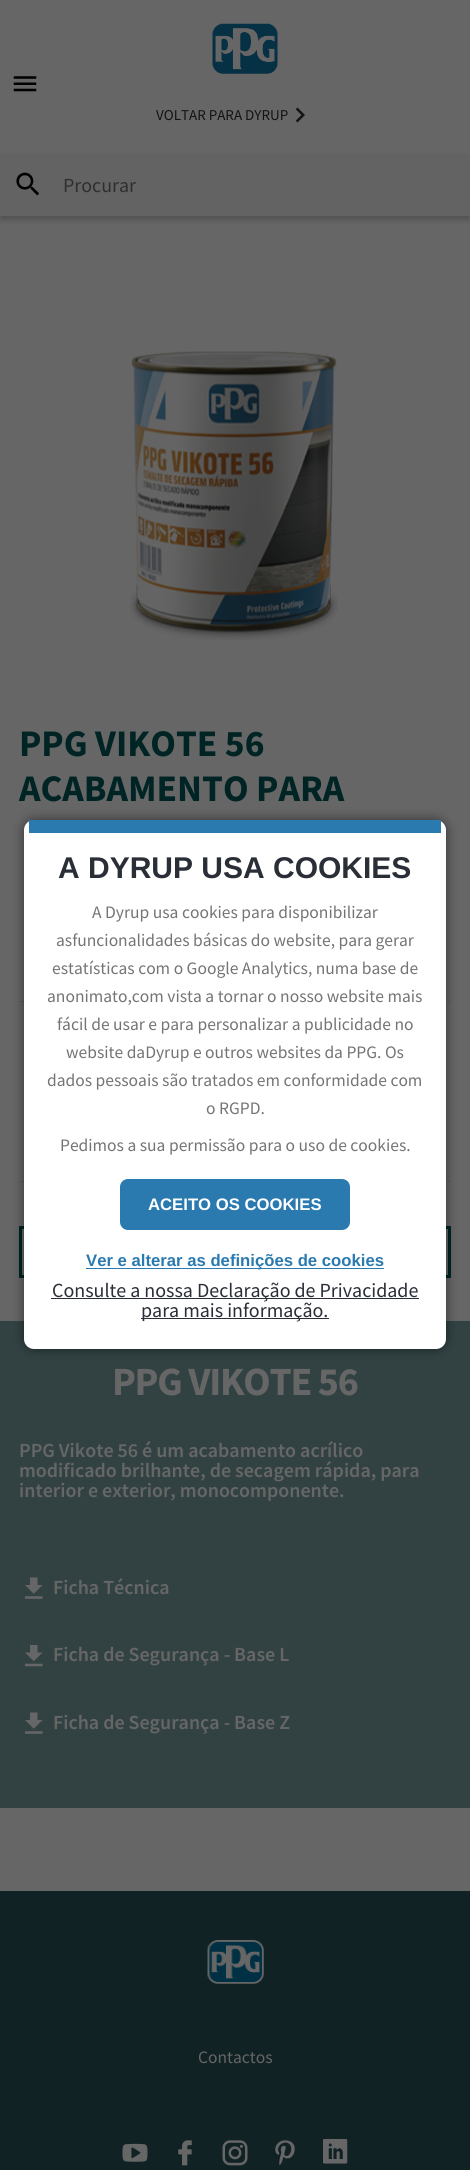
import math
import cairo

surface = cairo.ImageSurface(cairo.Format.RGB24, 470, 2170)
ctx = cairo.Context(surface)
options = cairo.FontOptions()
options.set_hint_metrics(cairo.HintMetrics.OFF)
options.set_hint_style(cairo.HintStyle.NONE)
ctx.set_font_options(options)
ctx.set_miter_limit(4)


def ink(r, g, b):
    ctx.set_source_rgb(r / 255, g / 255, b / 255)


def write(x, y, s, family, size, color, bold=False, italic=False):
    ctx.select_font_face(family, cairo.FontSlant.ITALIC if italic else cairo.FontSlant.NORMAL, cairo.FontWeight.BOLD if bold else cairo.FontWeight.NORMAL)
    ctx.set_font_size(size)
    ink(*color)
    ctx.move_to(x, y)
    ctx.show_text(s)


def write_spaced(x, y, s, letter, word):
    ctx.move_to(x, y)
    for ch in s:
        ctx.show_text(ch)
        ctx.rel_move_to(letter + word * (ch == ' '), 0)


def block(x, y, w, h, *color):
    ink(*color)
    ctx.rectangle(x, y, w, h)
    ctx.fill()


def round_path(x, y, w, h, r):
    ctx.new_sub_path()
    for i, (u, v) in enumerate([(x + w - r, y + h - r), (x + r, y + h - r), (x + r, y + r), (x + w - r, y + r)]):
        ctx.arc(u, v, r, i * math.pi / 2, (i + 1) * math.pi / 2)
    ctx.close_path()


def blur_box(x, y, w, h, r, blur, alpha):
    ctx.push_group_with_content(cairo.Content.ALPHA)
    ctx.set_operator(cairo.Operator.SOURCE)
    for i in range(15, -16, -2):
        e = blur * i / 6
        if min(w, h) + 2 * e > 0:
            ctx.set_source_rgba(0, 0, 0, alpha * math.erfc((i - 1) / 8.5) / 2)
            round_path(x - e, y - e, w + 2 * e, h + 2 * e, max(0, min(r + e + blur * .6, min(w, h) / 2 + e)))
            ctx.fill()
    ctx.mask(ctx.pop_group())


def paste(path, x, y, w, h):
    ctx.save()
    ctx.set_source_surface(cairo.ImageSurface.create_from_png(path), x, y)
    ctx.rectangle(x, y, w, h)
    ctx.fill()
    ctx.restore()


s1 = dict(family="Source Sans Pro", size=15, color=(19, 19, 19))
s2 = dict(family="Source Sans Pro", size=20, color=(47, 47, 47))
s3 = dict(family="Source Sans Pro", size=37.5, color=(0, 35, 36), bold=True)
s4 = dict(family="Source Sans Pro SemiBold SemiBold", size=20, color=(102, 102, 102))
s5 = dict(family="Liberation Sans", size=30, color=(42, 46, 55), bold=True)
s6 = dict(family="Source Sans Pro", size=17.5, color=(116, 116, 116))
s7 = dict(family="Liberation Sans", size=16.7, color=(255, 255, 255), bold=True)
s8 = dict(family="Liberation Sans", size=16.7, color=(42, 122, 176), bold=True)
s9 = dict(family="Source Sans Pro", size=20, color=(42, 46, 55))
s10 = dict(family="Source Sans Pro", size=17.5, color=(102, 102, 102))

ink(102, 102, 102)
ctx.paint()
paste("pic1.png", 212, 23, 66, 51)
paste("pic2.png", 13, 76, 24, 16)
write(156, 120, "VOLTAR PARA DYRUP", **s1)
paste("pic3.png", 295, 107, 10, 16)
ink(0, 0, 0)
blur_box(0, 158, 470, 62, 0, 3, 0.2)
block(0, 156, 470, 60, 99, 99, 99)
paste("pic4.png", 16, 172, 24, 24)
write(63, 192, "Procurar", **s2)
paste("pic5.png", 130, 351, 208, 290)
write(19, 756, "PPG VIKOTE 56", **s3)
write(19, 801, "ACABAMENTO PARA", **s3)
block(19, 1001, 432, 1, 92, 92, 92)
block(19, 1181, 432, 1, 92, 92, 92)
ctx.rectangle(20.5, 1227.5, 429, 49)
ink(0, 35, 36)
ctx.set_line_width(3)
ctx.stroke()
block(0, 1321, 470, 487, 50, 66, 67)
ctx.set_font_size(40)
ink(102, 102, 102)
write_spaced(112, 1395, "PPG VIKOTE 56", -1.25, 0)
write(19, 1457, "PPG Vikote 56 é um acabamento acrílico", **s4)
write(19, 1477, "modificado brilhante, de secagem rápida, para", **s4)
write(19, 1497, "interior e exterior, monocomponente.", **s4)
paste("pic6.png", 25, 1577, 18, 22)
write(53, 1594, "Ficha Técnica", **s4)
paste("pic7.png", 25, 1645, 18, 22)
write(53, 1661, "Ficha de Segurança - Base L", **s4)
paste("pic6.png", 25, 1712, 18, 22)
write(53, 1729, "Ficha de Segurança - Base Z", **s4)
ink(0, 0, 0)
blur_box(24, 820, 422, 529, 10, 6, 0.5)
ink(255, 255, 255)
round_path(24, 820, 422, 529, 10)
ctx.fill()
block(29, 820, 412, 13, 42, 122, 176)
write(58, 878, "A DYRUP USA COOKIES", **s5)
write(92, 918, "A Dyrup usa cookies para disponibilizar", **s6)
write(56, 946, "asfuncionalidades básicas do website, para gerar", **s6)
write(52, 974, "estatísticas com o Google Analytics, numa base de", **s6)
write(47, 1002, "anonimato,com vista a tornar o nosso website mais", **s6)
write(57, 1030, "fácil de usar e para personalizar a publicidade no", **s6)
write(66, 1058, "website daDyrup e outros websites da PPG. Os", **s6)
write(47, 1086, "dados pessoais são tratados em conformidade com", **s6)
write(206, 1114, "o RGPD.", **s6)
write(60, 1151, "Pedimos a sua permissão para o uso de cookies.", **s6)
ink(42, 122, 176)
round_path(120, 1179, 230, 51, 8)
ctx.fill()
write(148, 1210, "ACEITO OS COOKIES", **s7)
block(86, 1268, 298, 1, 42, 122, 176)
write(86, 1266, "Ver e alterar as definições de cookies", **s8)
block(51, 1298, 368, 1, 42, 46, 55)
write(52, 1297, "Consulte a nossa Declaração de Privacidade", **s9)
block(141, 1318, 188, 1, 42, 46, 55)
write(141, 1317, "para mais informação.", **s9)
block(0, 1891, 470, 279, 16, 34, 36)
paste("pic8.png", 207, 1940, 57, 44)
write(198, 2063, "Contactos", **s10)
paste("pic9.png", 122, 2143, 26, 19)
paste("pic10.png", 178, 2140, 14, 26)
paste("pic11.png", 222, 2140, 26, 26)
paste("pic12.png", 275, 2140, 20, 26)
paste("pic13.png", 323, 2139, 25, 25)
surface.write_to_png("screenshot.png")
